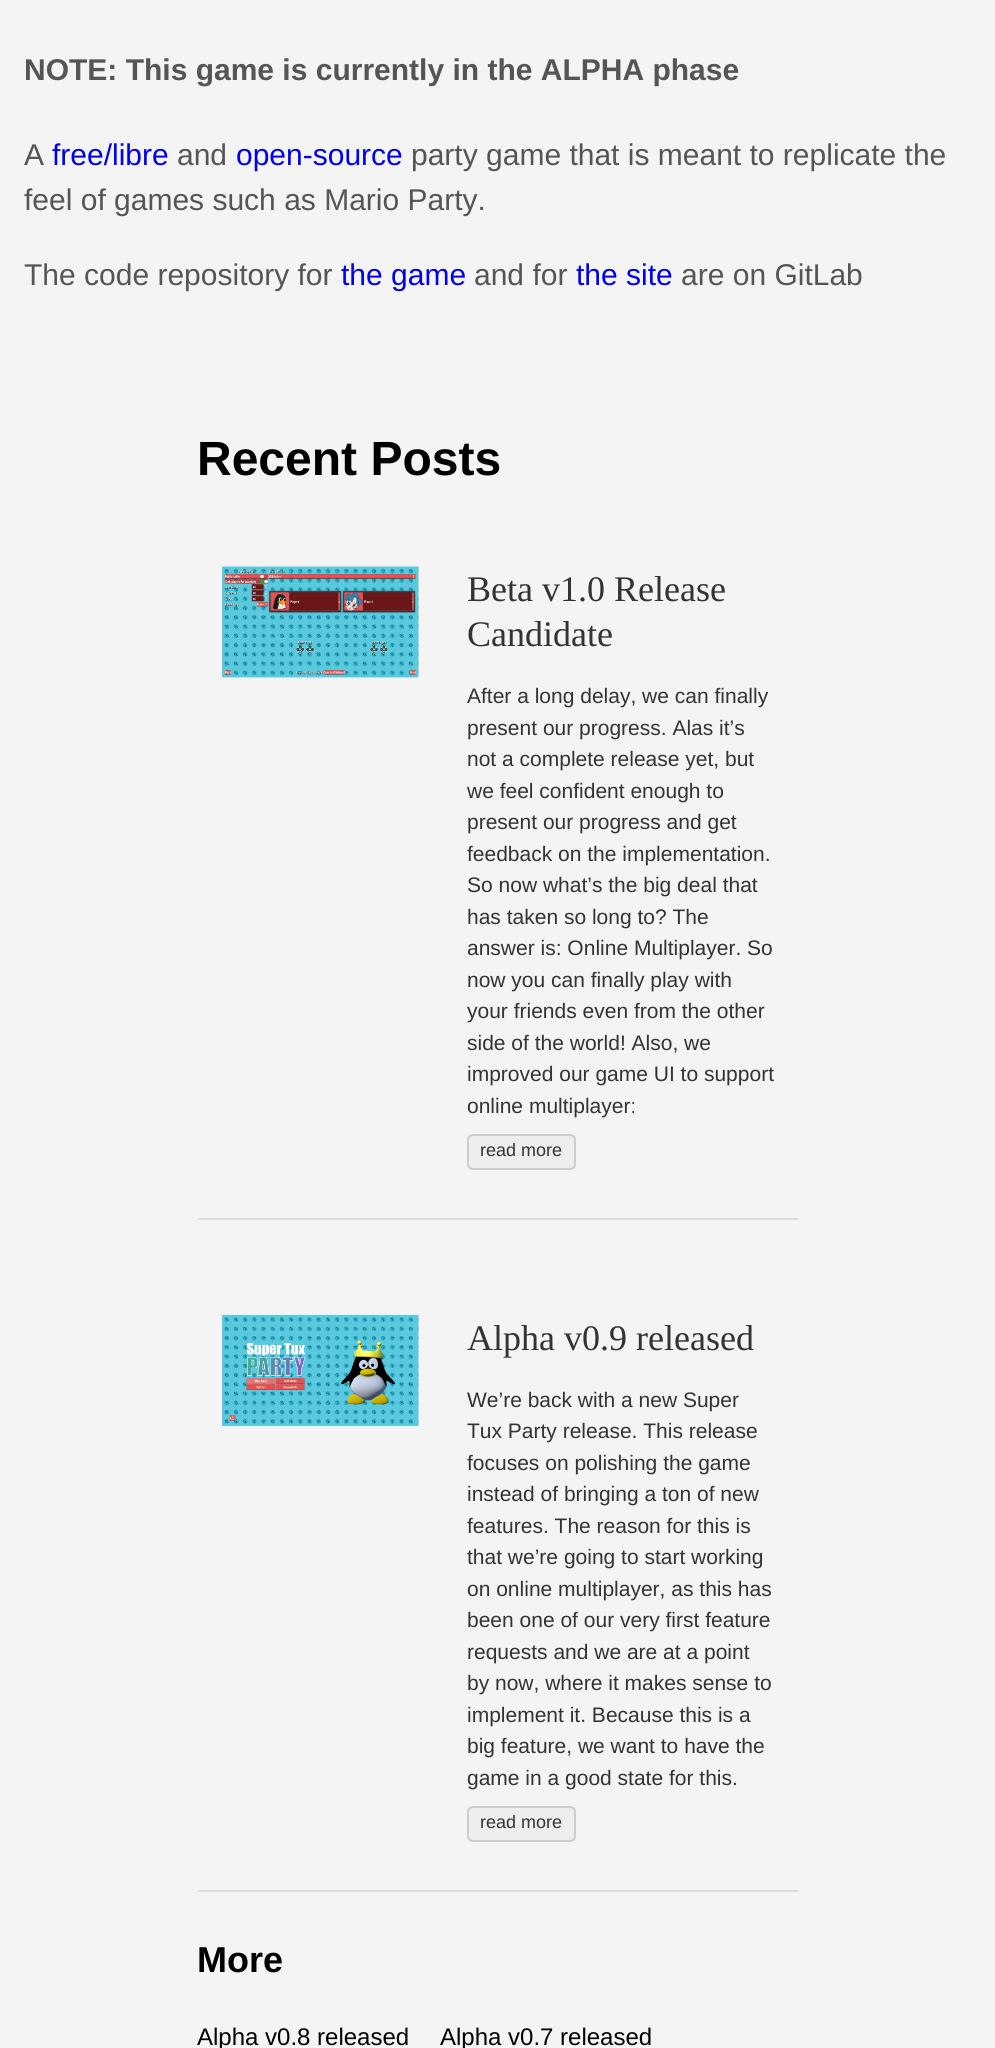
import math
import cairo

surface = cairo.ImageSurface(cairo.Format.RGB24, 995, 2048)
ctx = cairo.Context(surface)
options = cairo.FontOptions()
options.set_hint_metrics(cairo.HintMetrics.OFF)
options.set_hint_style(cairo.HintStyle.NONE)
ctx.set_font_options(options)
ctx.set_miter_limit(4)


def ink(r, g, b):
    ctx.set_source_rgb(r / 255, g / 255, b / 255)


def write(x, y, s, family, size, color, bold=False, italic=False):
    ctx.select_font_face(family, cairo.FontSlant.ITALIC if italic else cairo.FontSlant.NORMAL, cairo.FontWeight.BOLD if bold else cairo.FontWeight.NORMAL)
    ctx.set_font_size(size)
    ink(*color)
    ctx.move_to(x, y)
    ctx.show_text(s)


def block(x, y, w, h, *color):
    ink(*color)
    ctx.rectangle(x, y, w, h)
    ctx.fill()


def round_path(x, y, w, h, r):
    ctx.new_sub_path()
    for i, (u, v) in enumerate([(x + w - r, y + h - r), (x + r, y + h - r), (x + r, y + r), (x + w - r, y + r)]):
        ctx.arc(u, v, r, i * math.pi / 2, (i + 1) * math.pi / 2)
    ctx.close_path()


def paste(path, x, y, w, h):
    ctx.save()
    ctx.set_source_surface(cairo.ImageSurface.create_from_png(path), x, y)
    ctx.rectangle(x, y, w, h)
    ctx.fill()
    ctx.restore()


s1 = dict(family="Liberation Sans", size=30, color=(85, 85, 85), bold=True)
s2 = dict(family="Liberation Sans", size=30, color=(85, 85, 85))
s3 = dict(family="Liberation Sans", size=30, color=(0, 0, 238))
s4 = dict(family="Liberation Sans", size=48, color=(0, 0, 0), bold=True)
s5 = dict(family="Liberation Serif", size=36, color=(51, 51, 51))
s6 = dict(family="Liberation Sans", size=21, color=(51, 51, 51))
s7 = dict(family="Liberation Sans", size=18, color=(51, 51, 51))
s8 = dict(family="Liberation Sans", size=36, color=(0, 0, 0), bold=True)
s9 = dict(family="Liberation Sans", size=24, color=(0, 0, 0))

ink(244, 244, 244)
ctx.paint()
write(24, 80, "NOTE: This game is currently in the ALPHA phase", **s1)
write(24, 165, "A", **s2)
write(52, 165, "free/libre", **s3)
write(177, 165, "and", **s2)
write(236, 165, "open-source", **s3)
write(411, 165, "party game that is meant to replicate the", **s2)
write(24, 210, "feel of games such as Mario Party.", **s2)
write(24, 285, "The code repository for", **s2)
write(341, 285, "the game", **s3)
write(474, 285, "and for", **s2)
write(576, 285, "the site", **s3)
write(681, 285, "are on GitLab", **s2)
write(197, 475, "Recent Posts", **s4)
block(198, 1218, 600, 2, 220, 220, 220)
paste("pic1.png", 221, 566, 198, 112)
write(467, 601, "Beta v1.0 Release", **s5)
write(467, 646, "Candidate", **s5)
write(467, 703, "After a long delay, we can finally", **s6)
write(467, 735, "present our progress. Alas it’s", **s6)
write(467, 766, "not a complete release yet, but", **s6)
write(467, 798, "we feel confident enough to", **s6)
write(467, 829, "present our progress and get", **s6)
write(467, 861, "feedback on the implementation.", **s6)
write(467, 892, "So now what’s the big deal that", **s6)
write(467, 924, "has taken so long to? The", **s6)
write(467, 955, "answer is: Online Multiplayer. So", **s6)
write(467, 987, "now you can finally play with", **s6)
write(467, 1018, "your friends even from the other", **s6)
write(467, 1050, "side of the world! Also, we", **s6)
write(467, 1081, "improved our game UI to support", **s6)
write(467, 1113, "online multiplayer:", **s6)
ink(238, 238, 238)
round_path(468, 1135, 107, 34, 5)
ctx.fill_preserve()
ink(204, 204, 204)
ctx.stroke()
write(480, 1156, "read more", **s7)
block(198, 1890, 600, 2, 220, 220, 220)
paste("pic2.png", 221, 1314, 198, 112)
write(467, 1350, "Alpha v0.9 released", **s5)
write(467, 1407, "We’re back with a new Super", **s6)
write(467, 1438, "Tux Party release. This release", **s6)
write(467, 1470, "focuses on polishing the game", **s6)
write(467, 1501, "instead of bringing a ton of new", **s6)
write(467, 1533, "features. The reason for this is", **s6)
write(467, 1564, "that we’re going to start working", **s6)
write(467, 1596, "on online multiplayer, as this has", **s6)
write(467, 1627, "been one of our very first feature", **s6)
write(467, 1659, "requests and we are at a point", **s6)
write(467, 1690, "by now, where it makes sense to", **s6)
write(467, 1722, "implement it. Because this is a", **s6)
write(467, 1753, "big feature, we want to have the", **s6)
write(467, 1785, "game in a good state for this.", **s6)
ink(238, 238, 238)
round_path(468, 1807, 107, 34, 5)
ctx.fill_preserve()
ink(204, 204, 204)
ctx.stroke()
write(480, 1828, "read more", **s7)
write(197, 1972, "More", **s8)
write(197, 2045, "Alpha v0.8 released", **s9)
write(440, 2045, "Alpha v0.7 released", **s9)
surface.write_to_png("screenshot.png")
